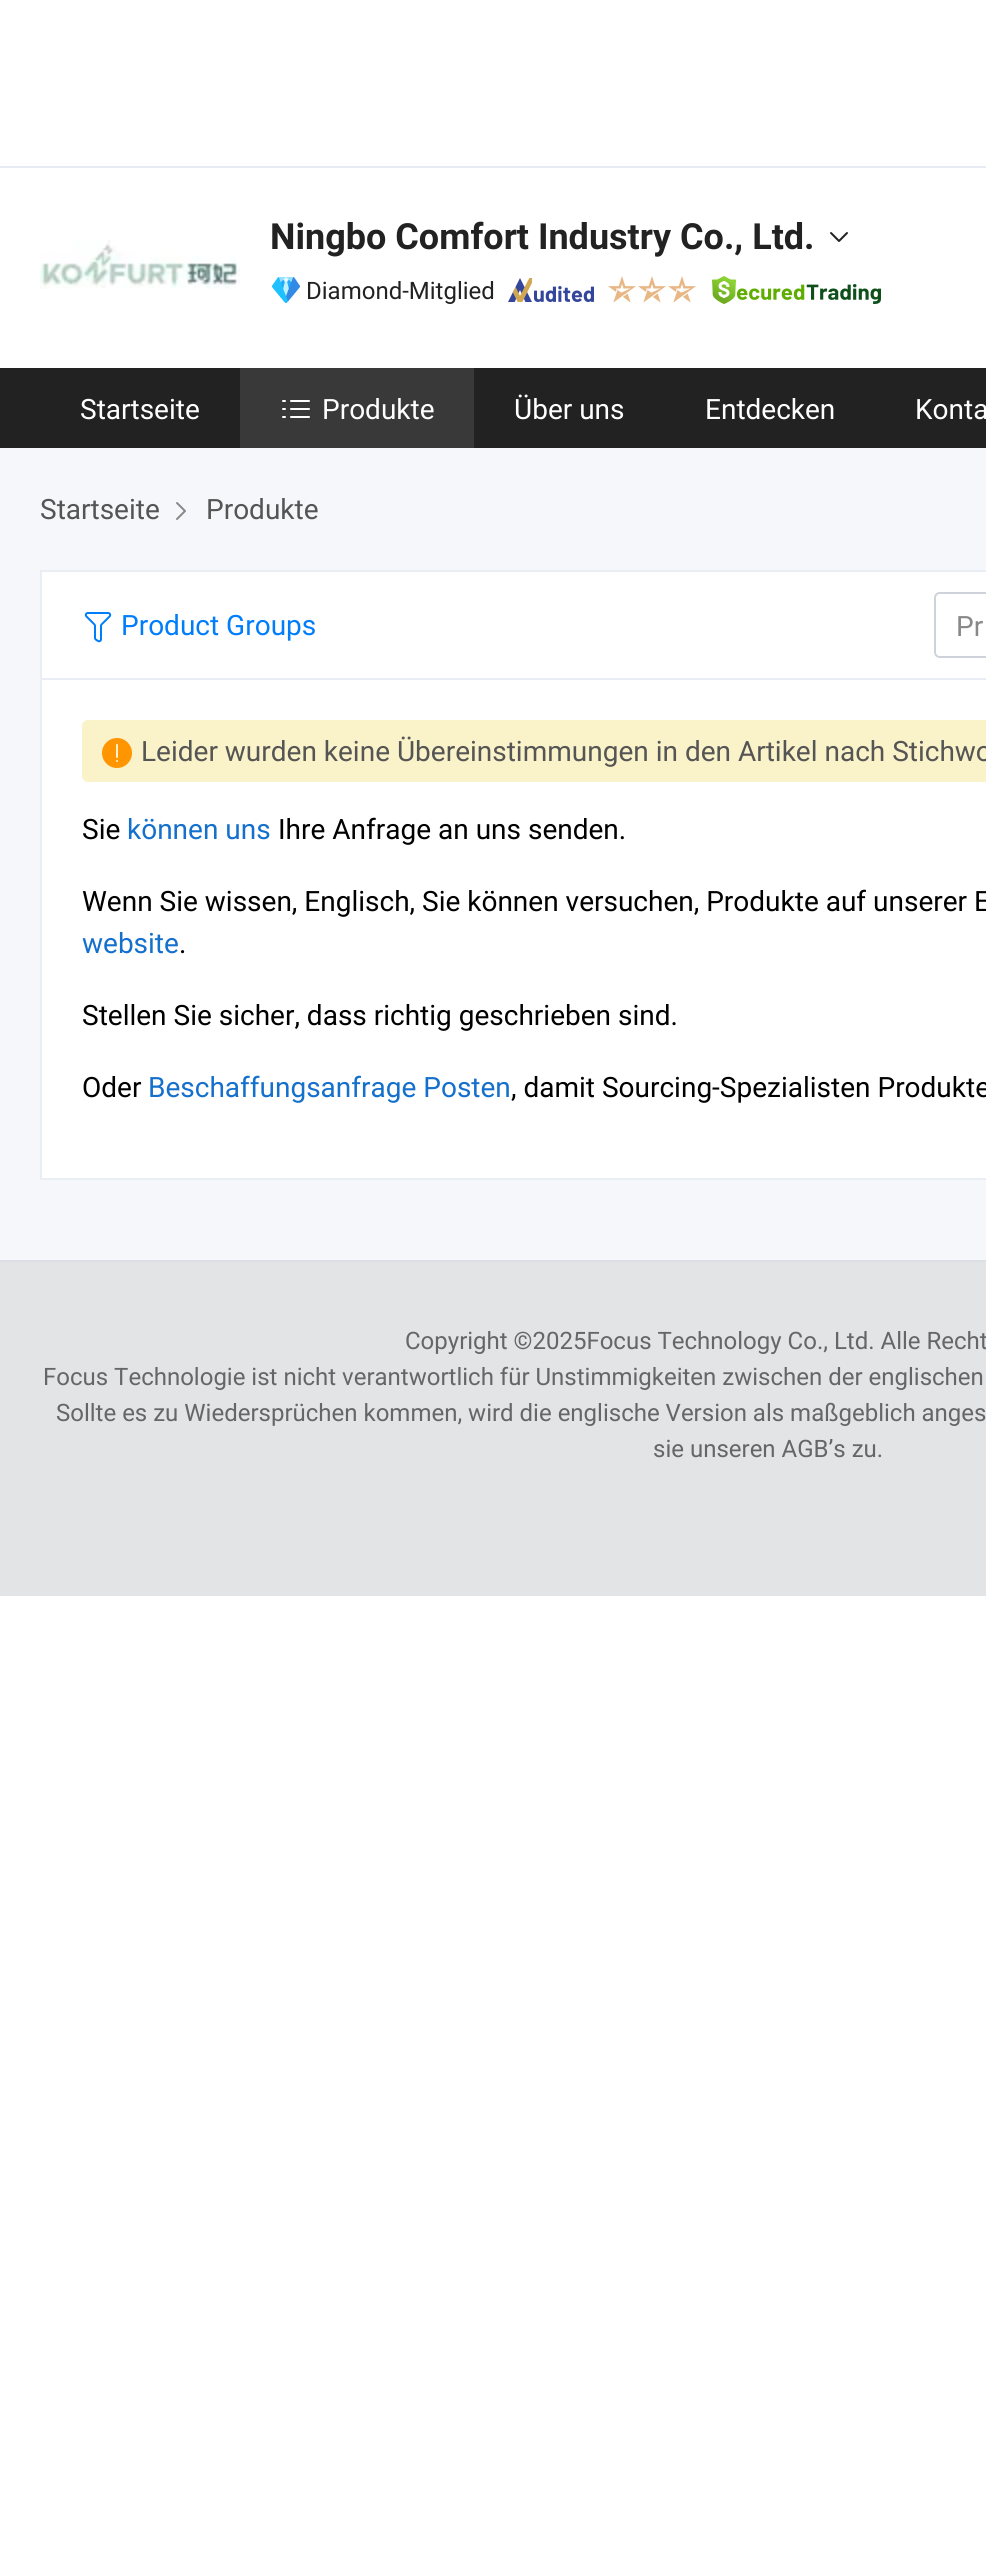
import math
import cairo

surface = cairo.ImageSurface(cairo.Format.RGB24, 986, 2563)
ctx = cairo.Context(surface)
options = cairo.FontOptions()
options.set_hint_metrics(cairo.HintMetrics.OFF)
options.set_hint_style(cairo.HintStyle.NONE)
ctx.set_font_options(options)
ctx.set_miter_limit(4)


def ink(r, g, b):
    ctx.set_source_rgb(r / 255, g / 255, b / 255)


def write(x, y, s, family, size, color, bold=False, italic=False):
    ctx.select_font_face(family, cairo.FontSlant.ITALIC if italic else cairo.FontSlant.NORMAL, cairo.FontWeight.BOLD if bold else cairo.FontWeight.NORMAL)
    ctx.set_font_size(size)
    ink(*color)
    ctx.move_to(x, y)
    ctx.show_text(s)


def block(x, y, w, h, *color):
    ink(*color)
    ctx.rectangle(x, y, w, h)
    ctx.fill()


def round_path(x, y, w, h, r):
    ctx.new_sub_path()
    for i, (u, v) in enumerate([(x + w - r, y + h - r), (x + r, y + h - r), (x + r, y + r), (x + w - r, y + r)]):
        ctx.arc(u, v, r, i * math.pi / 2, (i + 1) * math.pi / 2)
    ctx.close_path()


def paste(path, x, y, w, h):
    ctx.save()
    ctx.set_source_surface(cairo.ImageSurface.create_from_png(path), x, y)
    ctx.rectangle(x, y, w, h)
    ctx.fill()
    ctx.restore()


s1 = dict(family="Roboto", size=36, color=(34, 34, 34), bold=True)
s2 = dict(family="Roboto", size=24, color=(34, 34, 34))
s3 = dict(family="Roboto", size=28, color=(255, 255, 255))
s4 = dict(family="Roboto", size=28, color=(85, 85, 85))
s5 = dict(family="Roboto", size=28, color=(0, 125, 250))
s6 = dict(family="Roboto", size=28, color=(136, 136, 136))
s7 = dict(family="Roboto", size=28, color=(0, 0, 0))
s8 = dict(family="Roboto", size=28, color=(20, 112, 204))
s9 = dict(family="Roboto", size=24, color=(102, 102, 102))

ink(255, 255, 255)
ctx.paint()
block(0, 166, 986, 2, 230, 236, 242)
paste("pic1.png", 40, 240, 200, 49)
write(270, 249, "Ningbo Comfort Industry Co., Ltd.", **s1)
paste("pic2.png", 830, 232, 18, 10)
paste("pic3.png", 272, 277, 28, 26)
write(306, 299, "Diamond-Mitglied", **s2)
paste("pic4.png", 508, 278, 86, 24)
paste("pic5.png", 608, 276, 28, 27)
paste("pic5.png", 638, 276, 28, 27)
paste("pic5.png", 668, 276, 28, 27)
paste("pic6.png", 712, 276, 169, 28)
block(0, 368, 986, 80, 34, 34, 34)
write(80, 419, "Startseite", **s3)
block(240, 368, 234, 80, 57, 57, 57)
paste("pic7.png", 282, 400, 28, 18)
write(322, 419, "Produkte", **s3)
write(514, 419, "Über uns", **s3)
write(705, 419, "Entdecken", **s3)
write(915, 419, "Konta", **s3)
block(0, 448, 986, 812, 245, 247, 250)
write(40, 519, "Startseite", **s4)
paste("pic8.png", 176, 502, 10, 18)
write(206, 519, "Produkte", **s4)
ink(255, 255, 255)
ctx.rectangle(41, 571, 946, 108)
ctx.fill_preserve()
ink(233, 238, 244)
ctx.stroke()
paste("pic9.png", 84, 612, 28, 31)
write(121, 635, "Product Groups", **s5)
ctx.new_path()
ctx.move_to(940, 593)
ctx.line_to(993, 593)
ctx.line_to(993, 657)
ctx.line_to(940, 657)
ctx.curve_to(937, 657, 935, 655, 935, 652)
ctx.line_to(935, 598)
ctx.curve_to(935, 595, 937, 593, 940, 593)
ctx.close_path()
ink(206, 211, 217)
ctx.stroke()
write(956, 636, "Pr", **s6)
ink(255, 255, 255)
ctx.rectangle(41, 679, 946, 500)
ctx.fill_preserve()
ink(233, 238, 244)
ctx.stroke()
ink(250, 242, 200)
round_path(82, 720, 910, 62, 6)
ctx.fill()
paste("pic10.png", 102, 738, 30, 30)
write(141, 761, "Leider wurden keine Übereinstimmungen in den Artikel nach Stichwo", **s4)
write(82, 839, "Sie", **s7)
write(127, 839, "können uns", **s8)
write(278, 839, "Ihre Anfrage an uns senden.", **s7)
write(82, 911, "Wenn Sie wissen, Englisch, Sie können versuchen, Produkte auf unserer E", **s7)
write(82, 953, "website", **s8)
write(179, 953, ".", **s7)
write(82, 1025, "Stellen Sie sicher, dass richtig geschrieben sind.", **s7)
write(82, 1097, "Oder", **s7)
write(148, 1097, "Beschaffungsanfrage Posten", **s8)
write(511, 1097, ", damit Sourcing-Spezialisten Produkte", **s7)
block(0, 1262, 986, 334, 227, 228, 230)
block(0, 1260, 986, 2, 218, 224, 230)
write(405, 1349, "Copyright ©2025Focus Technology Co., Ltd. Alle Recht", **s9)
write(43, 1385, "Focus Technologie ist nicht verantwortlich für Unstimmigkeiten zwischen der englischen", **s9)
write(56, 1421, "Sollte es zu Wiedersprüchen kommen, wird die englische Version als maßgeblich anges", **s9)
write(653, 1457, "sie unseren AGB’s zu.", **s9)
surface.write_to_png("screenshot.png")
